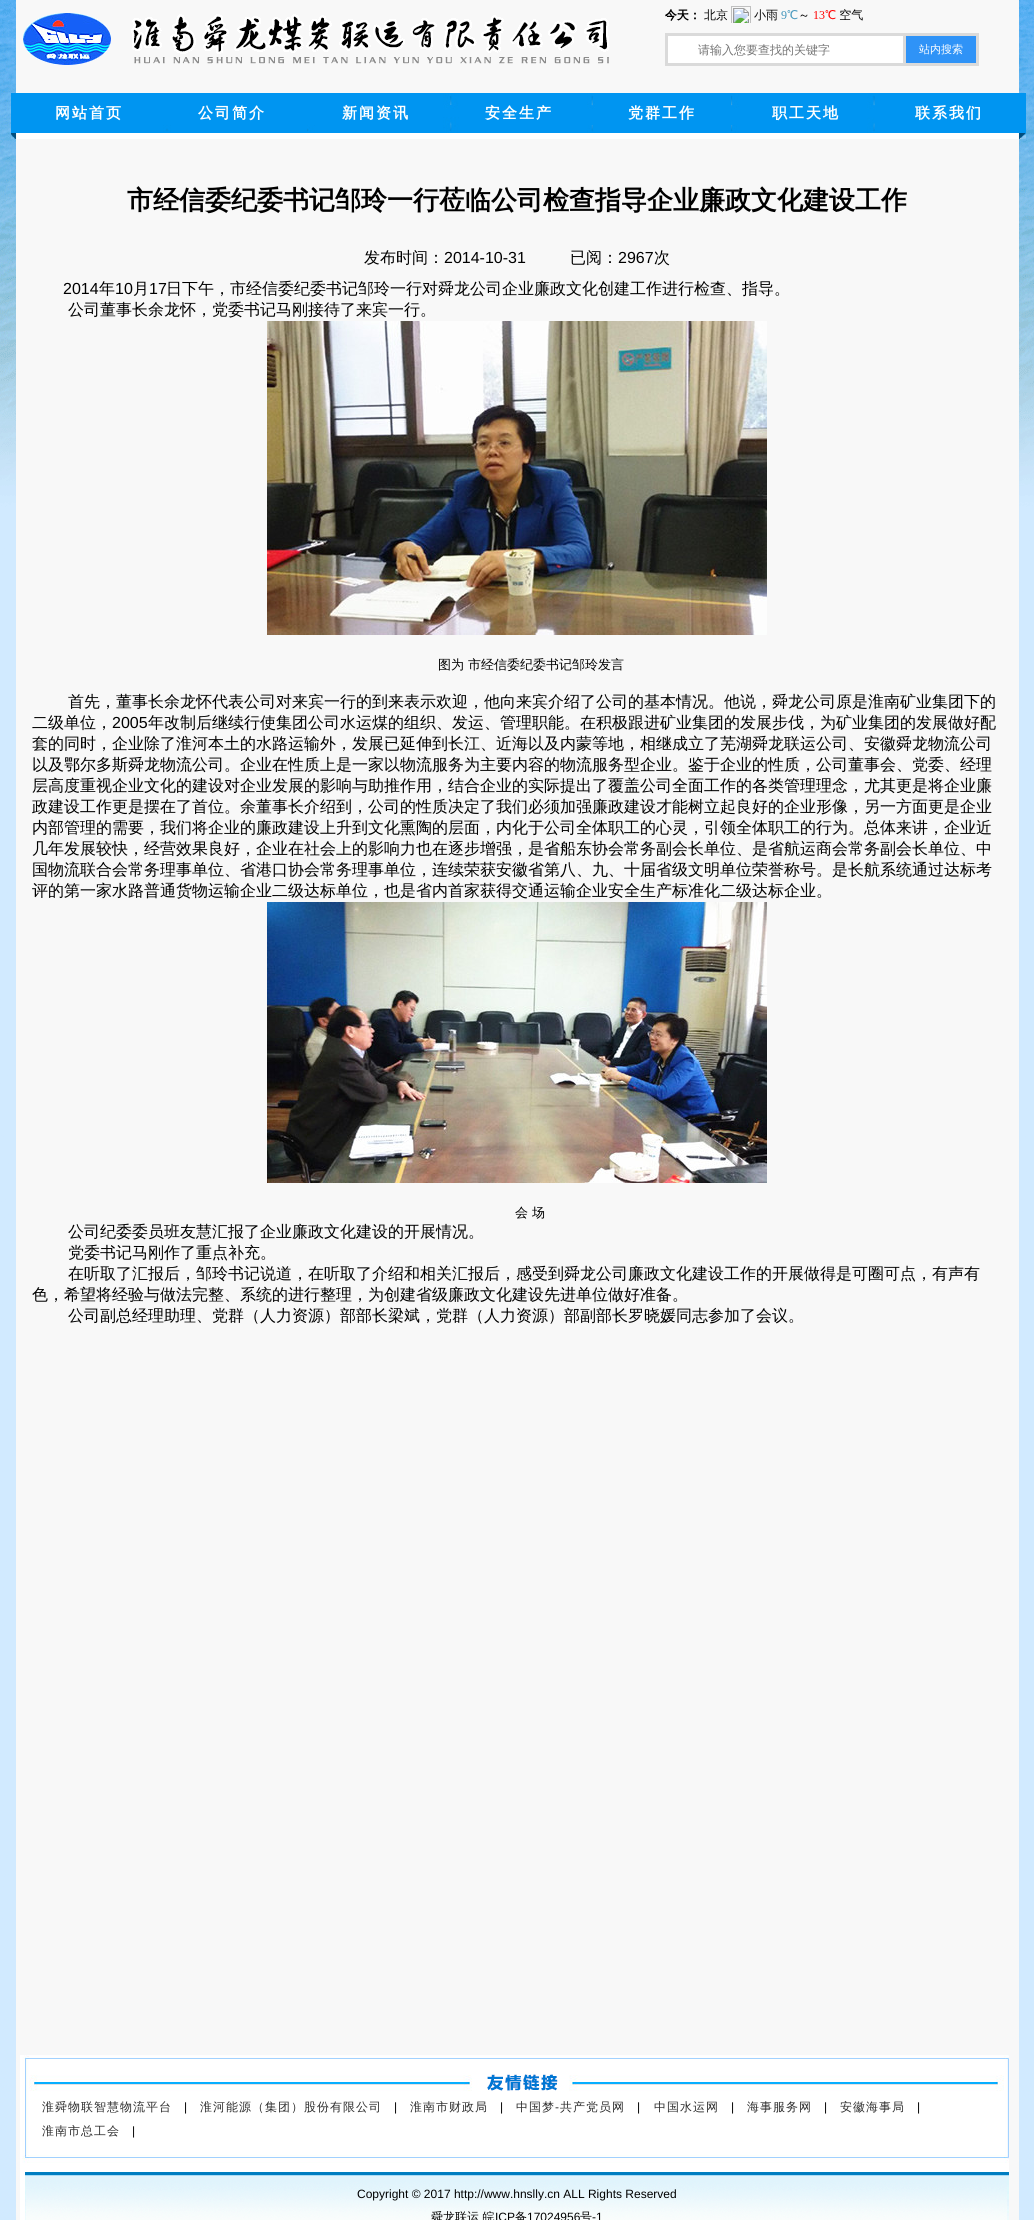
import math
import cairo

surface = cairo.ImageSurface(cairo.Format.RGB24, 1034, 2220)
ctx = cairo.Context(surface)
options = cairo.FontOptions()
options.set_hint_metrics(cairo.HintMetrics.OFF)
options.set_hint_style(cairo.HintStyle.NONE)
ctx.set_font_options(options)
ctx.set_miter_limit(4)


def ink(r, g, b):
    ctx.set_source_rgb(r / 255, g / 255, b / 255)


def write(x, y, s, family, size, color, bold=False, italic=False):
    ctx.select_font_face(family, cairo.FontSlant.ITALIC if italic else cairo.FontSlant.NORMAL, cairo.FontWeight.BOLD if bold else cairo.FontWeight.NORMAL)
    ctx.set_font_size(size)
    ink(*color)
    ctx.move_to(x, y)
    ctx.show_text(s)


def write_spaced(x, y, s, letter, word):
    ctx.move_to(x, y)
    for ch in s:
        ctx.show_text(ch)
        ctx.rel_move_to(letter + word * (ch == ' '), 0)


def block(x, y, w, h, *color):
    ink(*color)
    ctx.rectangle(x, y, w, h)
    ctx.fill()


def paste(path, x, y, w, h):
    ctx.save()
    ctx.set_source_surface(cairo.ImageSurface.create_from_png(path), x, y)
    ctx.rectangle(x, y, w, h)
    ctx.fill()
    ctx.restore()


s1 = dict(family="WenQuanYi Zen Hei Medium", size=12, color=(117, 117, 117))
s2 = dict(family="WenQuanYi Zen Hei Medium", size=11, color=(255, 255, 255))
s3 = dict(family="WenQuanYi Zen Hei", size=26, color=(0, 0, 0), bold=True)
s4 = dict(family="WenQuanYi Zen Hei Medium", size=16, color=(0, 0, 0))
s5 = dict(family="Liberation Sans", size=16, color=(0, 0, 0))
s6 = dict(family="WenQuanYi Zen Hei Medium", size=13, color=(0, 0, 0))
s7 = dict(family="Liberation Sans", size=12, color=(0, 0, 0))
s8 = dict(family="WenQuanYi Zen Hei Medium", size=12, color=(0, 0, 0))

ink(255, 255, 255)
ctx.paint()
paste("pic1.png", 0, 0, 1034, 2220)
block(16, 0, 1003, 2220, 248, 248, 248)
paste("pic2.png", 23, 13, 587, 52)
paste("pic3.png", 665, 6, 198, 17)
block(668, 36, 235, 27, 255, 255, 255)
block(665, 33, 238, 3, 218, 218, 218)
block(665, 63, 238, 3, 218, 218, 218)
block(665, 33, 3, 33, 218, 218, 218)
write(698, 54, "请输入您要查找的关键字", **s1)
ink(47, 147, 247)
ctx.rectangle(904.5, 34.5, 73, 30)
ctx.fill_preserve()
ink(218, 218, 218)
ctx.set_line_width(3)
ctx.stroke()
write(919, 53, "站内搜索", **s2)
paste("pic4.png", 11, 93, 1015, 46)
ctx.select_font_face("WenQuanYi Zen Hei", cairo.FontSlant.NORMAL, cairo.FontWeight.BOLD)
ctx.set_font_size(15)
write_spaced(55, 118, "网站首页", 2, 0)
write_spaced(198, 118, "公司简介", 2, 0)
write_spaced(342, 118, "新闻资讯", 2, 0)
write_spaced(485, 118, "安全生产", 2, 0)
write_spaced(628, 118, "党群工作", 2, 0)
write_spaced(772, 118, "职工天地", 2, 0)
write_spaced(915, 118, "联系我们", 2, 0)
write(127, 209, "市经信委纪委书记邹玲一行莅临公司检查指导企业廉政文化建设工作", **s3)
write(364, 263, "发布时间：", **s4)
write(444, 263, "2014-10-31", **s5)
write(570, 263, "已阅：", **s4)
write(618, 263, "2967", **s5)
write(654, 263, "次", **s4)
write(63, 294, "2014", **s5)
write(99, 294, "年", **s4)
write(115, 294, "10", **s5)
write(133, 294, "月", **s4)
write(149, 294, "17", **s5)
write(166, 294, "日下午，市经信委纪委书记邹玲一行对舜龙公司企业廉政文化创建工作进行检查、指导。", **s4)
write(68, 315, "公司董事长余龙怀，党委书记马刚接待了来宾一行。", **s4)
paste("pic5.png", 267, 321, 500, 314)
write(438, 669, "图为 市经信委纪委书记邹玲发言", **s6)
write(68, 707, "首先，董事长余龙怀代表公司对来宾一行的到来表示欢迎，他向来宾介绍了公司的基本情况。他说，舜龙公司原是淮南矿业集团下的", **s4)
write(32, 728, "二级单位，", **s4)
write(112, 728, "2005", **s5)
write(148, 728, "年改制后继续行使集团公司水运煤的组织、发运、管理职能。在积极跟进矿业集团的发展步伐，为矿业集团的发展做好配", **s4)
write(32, 749, "套的同时，企业除了淮河本土的水路运输外，发展已延伸到长江、近海以及内蒙等地，相继成立了芜湖舜龙联运公司、安徽舜龙物流公司", **s4)
write(32, 770, "以及鄂尔多斯舜龙物流公司。企业在性质上是一家以物流服务为主要内容的物流服务型企业。鉴于企业的性质，公司董事会、党委、经理", **s4)
write(32, 791, "层高度重视企业文化的建设对企业发展的影响与助推作用，结合企业的实际提出了覆盖公司全面工作的各类管理理念，尤其更是将企业廉", **s4)
write(32, 812, "政建设工作更是摆在了首位。余董事长介绍到，公司的性质决定了我们必须加强廉政建设才能树立起良好的企业形像，另一方面更是企业", **s4)
write(32, 833, "内部管理的需要，我们将企业的廉政建设上升到文化熏陶的层面，内化于公司全体职工的心灵，引领全体职工的行为。总体来讲，企业近", **s4)
write(32, 854, "几年发展较快，经营效果良好，企业在社会上的影响力也在逐步增强，是省船东协会常务副会长单位、是省航运商会常务副会长单位、中", **s4)
write(32, 875, "国物流联合会常务理事单位、省港口协会常务理事单位，连续荣获安徽省第八、九、十届省级文明单位荣誉称号。是长航系统通过达标考", **s4)
write(32, 896, "评的第一家水路普通货物运输企业二级达标单位，也是省内首家获得交通运输企业安全生产标准化二级达标企业。", **s4)
paste("pic6.png", 267, 902, 500, 281)
write(515, 1217, "会 场", **s6)
write(68, 1237, "公司纪委委员班友慧汇报了企业廉政文化建设的开展情况。", **s4)
write(68, 1258, "党委书记马刚作了重点补充。", **s4)
write(68, 1279, "在听取了汇报后，邹玲书记说道，在听取了介绍和相关汇报后，感受到舜龙公司廉政文化建设工作的开展做得是可圈可点，有声有", **s4)
write(32, 1300, "色，希望将经验与做法完整、系统的进行整理，为创建省级廉政文化建设先进单位做好准备。", **s4)
write(68, 1321, "公司副总经理助理、党群（人力资源）部部长梁斌，党群（人力资源）部副部长罗晓媛同志参加了会议。", **s4)
paste("pic7.png", 20, 2055, 989, 165)
ctx.set_font_size(12)
ink(45, 45, 45)
write_spaced(42, 2111, "淮舜物联智慧物流平台", 1, 0)
ctx.select_font_face("Liberation Sans")
ink(0, 0, 0)
write_spaced(184, 2111, "|", 1, 0)
ctx.select_font_face("WenQuanYi Zen Hei Medium")
ink(45, 45, 45)
write_spaced(200, 2111, "淮河能源（集团）股份有限公司", 1, 0)
ctx.select_font_face("Liberation Sans")
ink(0, 0, 0)
write_spaced(394, 2111, "|", 1, 0)
ctx.select_font_face("WenQuanYi Zen Hei Medium")
ink(45, 45, 45)
write_spaced(410, 2111, "淮南市财政局", 1, 0)
ctx.select_font_face("Liberation Sans")
ink(0, 0, 0)
write_spaced(500, 2111, "|", 1, 0)
ctx.select_font_face("WenQuanYi Zen Hei Medium")
ink(45, 45, 45)
write_spaced(516, 2111, "中国梦", 1, 0)
ctx.select_font_face("Liberation Sans")
write_spaced(555, 2111, "-", 1, 0)
ctx.select_font_face("WenQuanYi Zen Hei Medium")
write_spaced(560, 2111, "共产党员网", 1, 0)
ctx.select_font_face("Liberation Sans")
ink(0, 0, 0)
write_spaced(637, 2111, "|", 1, 0)
ctx.select_font_face("WenQuanYi Zen Hei Medium")
ink(45, 45, 45)
write_spaced(654, 2111, "中国水运网", 1, 0)
ctx.select_font_face("Liberation Sans")
ink(0, 0, 0)
write_spaced(731, 2111, "|", 1, 0)
ctx.select_font_face("WenQuanYi Zen Hei Medium")
ink(45, 45, 45)
write_spaced(747, 2111, "海事服务网", 1, 0)
ctx.select_font_face("Liberation Sans")
ink(0, 0, 0)
write_spaced(824, 2111, "|", 1, 0)
ctx.select_font_face("WenQuanYi Zen Hei Medium")
ink(45, 45, 45)
write_spaced(840, 2111, "安徽海事局", 1, 0)
ctx.select_font_face("Liberation Sans")
ink(0, 0, 0)
write_spaced(917, 2111, "|", 1, 0)
ctx.select_font_face("WenQuanYi Zen Hei Medium")
ink(45, 45, 45)
write_spaced(42, 2135, "淮南市总工会", 1, 0)
ctx.select_font_face("Liberation Sans")
ink(0, 0, 0)
write_spaced(132, 2135, "|", 1, 0)
write(357, 2198, "Copyright © 2017 http://www.hnslly.cn ALL Rights Reserved", **s7)
write(431, 2221, "舜龙联运 皖", **s8)
write(495, 2221, "ICP", **s7)
write(515, 2221, "备", **s8)
write(527, 2221, "17024956", **s7)
write(580, 2221, "号", **s8)
write(592, 2221, "-1", **s7)
surface.write_to_png("screenshot.png")
